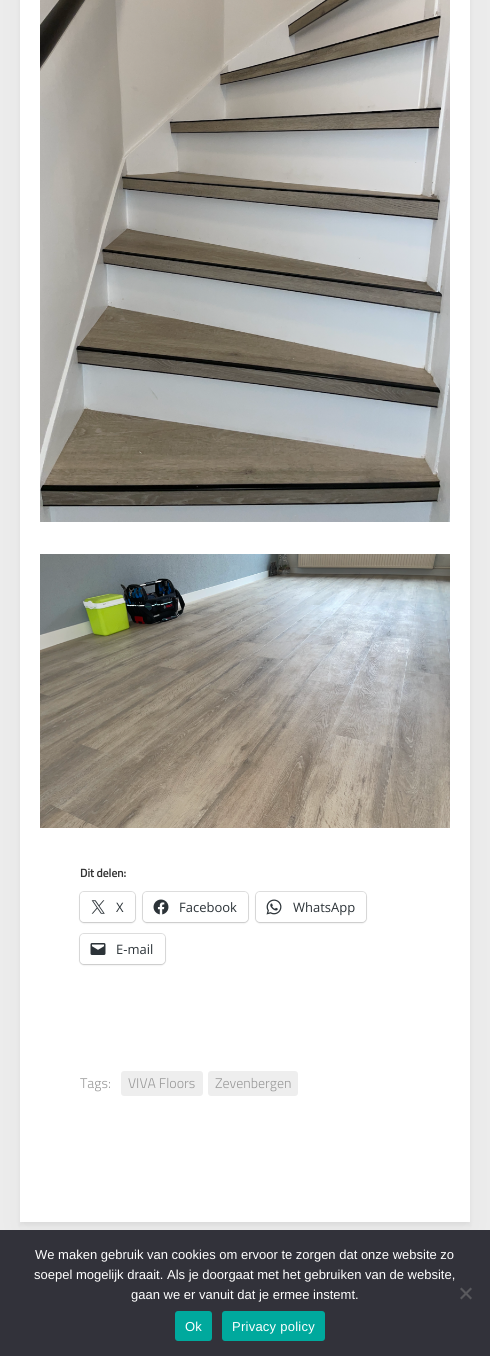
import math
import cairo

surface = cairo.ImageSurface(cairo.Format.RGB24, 490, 1356)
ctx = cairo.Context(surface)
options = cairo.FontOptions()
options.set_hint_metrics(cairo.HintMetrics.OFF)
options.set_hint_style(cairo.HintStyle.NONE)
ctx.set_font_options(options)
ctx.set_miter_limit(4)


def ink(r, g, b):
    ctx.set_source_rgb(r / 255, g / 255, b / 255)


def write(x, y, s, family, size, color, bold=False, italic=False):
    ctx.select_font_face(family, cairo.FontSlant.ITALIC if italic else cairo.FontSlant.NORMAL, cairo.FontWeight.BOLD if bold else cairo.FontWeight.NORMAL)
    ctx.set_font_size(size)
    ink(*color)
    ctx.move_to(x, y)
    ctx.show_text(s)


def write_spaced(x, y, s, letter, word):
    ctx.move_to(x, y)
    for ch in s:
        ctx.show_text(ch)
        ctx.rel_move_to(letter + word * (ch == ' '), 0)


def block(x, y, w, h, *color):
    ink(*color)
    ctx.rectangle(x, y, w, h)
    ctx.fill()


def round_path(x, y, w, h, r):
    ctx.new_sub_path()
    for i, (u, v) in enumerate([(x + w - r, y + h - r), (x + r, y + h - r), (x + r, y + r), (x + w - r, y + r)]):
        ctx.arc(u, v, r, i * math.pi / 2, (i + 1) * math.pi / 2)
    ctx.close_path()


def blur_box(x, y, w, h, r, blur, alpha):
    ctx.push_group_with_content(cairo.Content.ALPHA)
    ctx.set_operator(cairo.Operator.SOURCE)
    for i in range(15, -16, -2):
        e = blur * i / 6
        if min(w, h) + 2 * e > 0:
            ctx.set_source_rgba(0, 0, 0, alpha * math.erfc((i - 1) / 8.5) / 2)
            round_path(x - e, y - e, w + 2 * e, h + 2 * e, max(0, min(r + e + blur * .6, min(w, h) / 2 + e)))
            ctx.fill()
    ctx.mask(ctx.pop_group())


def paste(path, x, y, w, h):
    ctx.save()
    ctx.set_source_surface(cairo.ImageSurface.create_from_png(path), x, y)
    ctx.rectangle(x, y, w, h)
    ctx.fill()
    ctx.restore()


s1 = dict(family="Open Sans", size=13, color=(44, 51, 56))
s2 = dict(family="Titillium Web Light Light", size=14, color=(153, 153, 153))
s3 = dict(family="Liberation Sans", size=13, color=(255, 255, 255))

ink(238, 238, 238)
ctx.paint()
ink(0, 0, 0)
blur_box(20, -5, 450, 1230, 0, 1.5, 0.05)
blur_box(20, -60, 450, 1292, 0, 20, 0.05)
block(20, 0, 450, 1222, 255, 255, 255)
paste("pic1.png", 40, 0, 410, 522)
paste("pic2.png", 40, 554, 410, 274)
ctx.select_font_face("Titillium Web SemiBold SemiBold")
ctx.set_font_size(12)
ink(51, 51, 51)
write_spaced(80, 877, "Dit delen:", -0.25, 0)
round_path(79.5, 891.5, 56, 31, 4.5)
ink(224, 224, 224)
ctx.set_line_width(1)
ctx.stroke()
ink(0, 0, 0)
blur_box(80, 893, 55, 30, 4, 1, 0.12)
ink(255, 255, 255)
round_path(80, 892, 55, 30, 4)
ctx.fill()
paste("pic3.png", 91, 900, 14, 14)
write(116, 912, "X", **s1)
round_path(142.5, 891.5, 106, 31, 4.5)
ink(224, 224, 224)
ctx.stroke()
ink(0, 0, 0)
blur_box(143, 893, 105, 30, 4, 1, 0.12)
ink(255, 255, 255)
round_path(143, 892, 105, 30, 4)
ctx.fill()
paste("pic4.png", 153, 899, 16, 16)
write(179, 912, "Facebook", **s1)
round_path(255.5, 891.5, 111, 31, 4.5)
ink(224, 224, 224)
ctx.stroke()
ink(0, 0, 0)
blur_box(256, 893, 110, 30, 4, 1, 0.12)
ink(255, 255, 255)
round_path(256, 892, 110, 30, 4)
ctx.fill()
paste("pic5.png", 266, 899, 16, 16)
write(293, 912, "WhatsApp", **s1)
round_path(79.5, 933.5, 86, 31, 4.5)
ink(224, 224, 224)
ctx.stroke()
ink(0, 0, 0)
blur_box(80, 935, 85, 30, 4, 1, 0.12)
ink(255, 255, 255)
round_path(80, 934, 85, 30, 4)
ctx.fill()
paste("pic6.png", 90, 943, 16, 12)
write(116, 954, "E-mail", **s1)
write(80, 1088, "Tags:", **s2)
ink(238, 238, 238)
round_path(121, 1071, 82, 25, 3)
ctx.fill()
write(128, 1088, "VIVA Floors", **s2)
ink(238, 238, 238)
round_path(208, 1071, 90, 25, 3)
ctx.fill()
write(215, 1088, "Zevenbergen", **s2)
block(0, 1230, 490, 126, 50, 50, 58)
write(35, 1259, "We maken gebruik van cookies om ervoor te zorgen dat onze website zo", **s3)
write(34, 1279, "soepel mogelijk draait. Als je doorgaat met het gebruiken van de website,", **s3)
write(131, 1299, "gaan we er vanuit dat je ermee instemt.", **s3)
ink(89, 89, 93)
ctx.new_path()
ctx.move_to(470.5, 1287.5)
ctx.line_to(472, 1289)
ctx.line_to(461.5, 1299.5)
ctx.line_to(460, 1298)
ctx.close_path()
ctx.fill()
ctx.new_path()
ctx.move_to(460, 1289)
ctx.line_to(461.5, 1287.5)
ctx.line_to(472, 1298)
ctx.line_to(470.5, 1299.5)
ctx.close_path()
ctx.fill()
ink(0, 169, 157)
round_path(175, 1311, 37, 30, 3)
ctx.fill()
ink(255, 255, 255)
write_spaced(185, 1331, "Ok", 0.25, 0)
ink(0, 169, 157)
round_path(222, 1311, 103, 30, 3)
ctx.fill()
ink(255, 255, 255)
write_spaced(232, 1331, "Privacy policy", 0.25, 0)
surface.write_to_png("screenshot.png")
